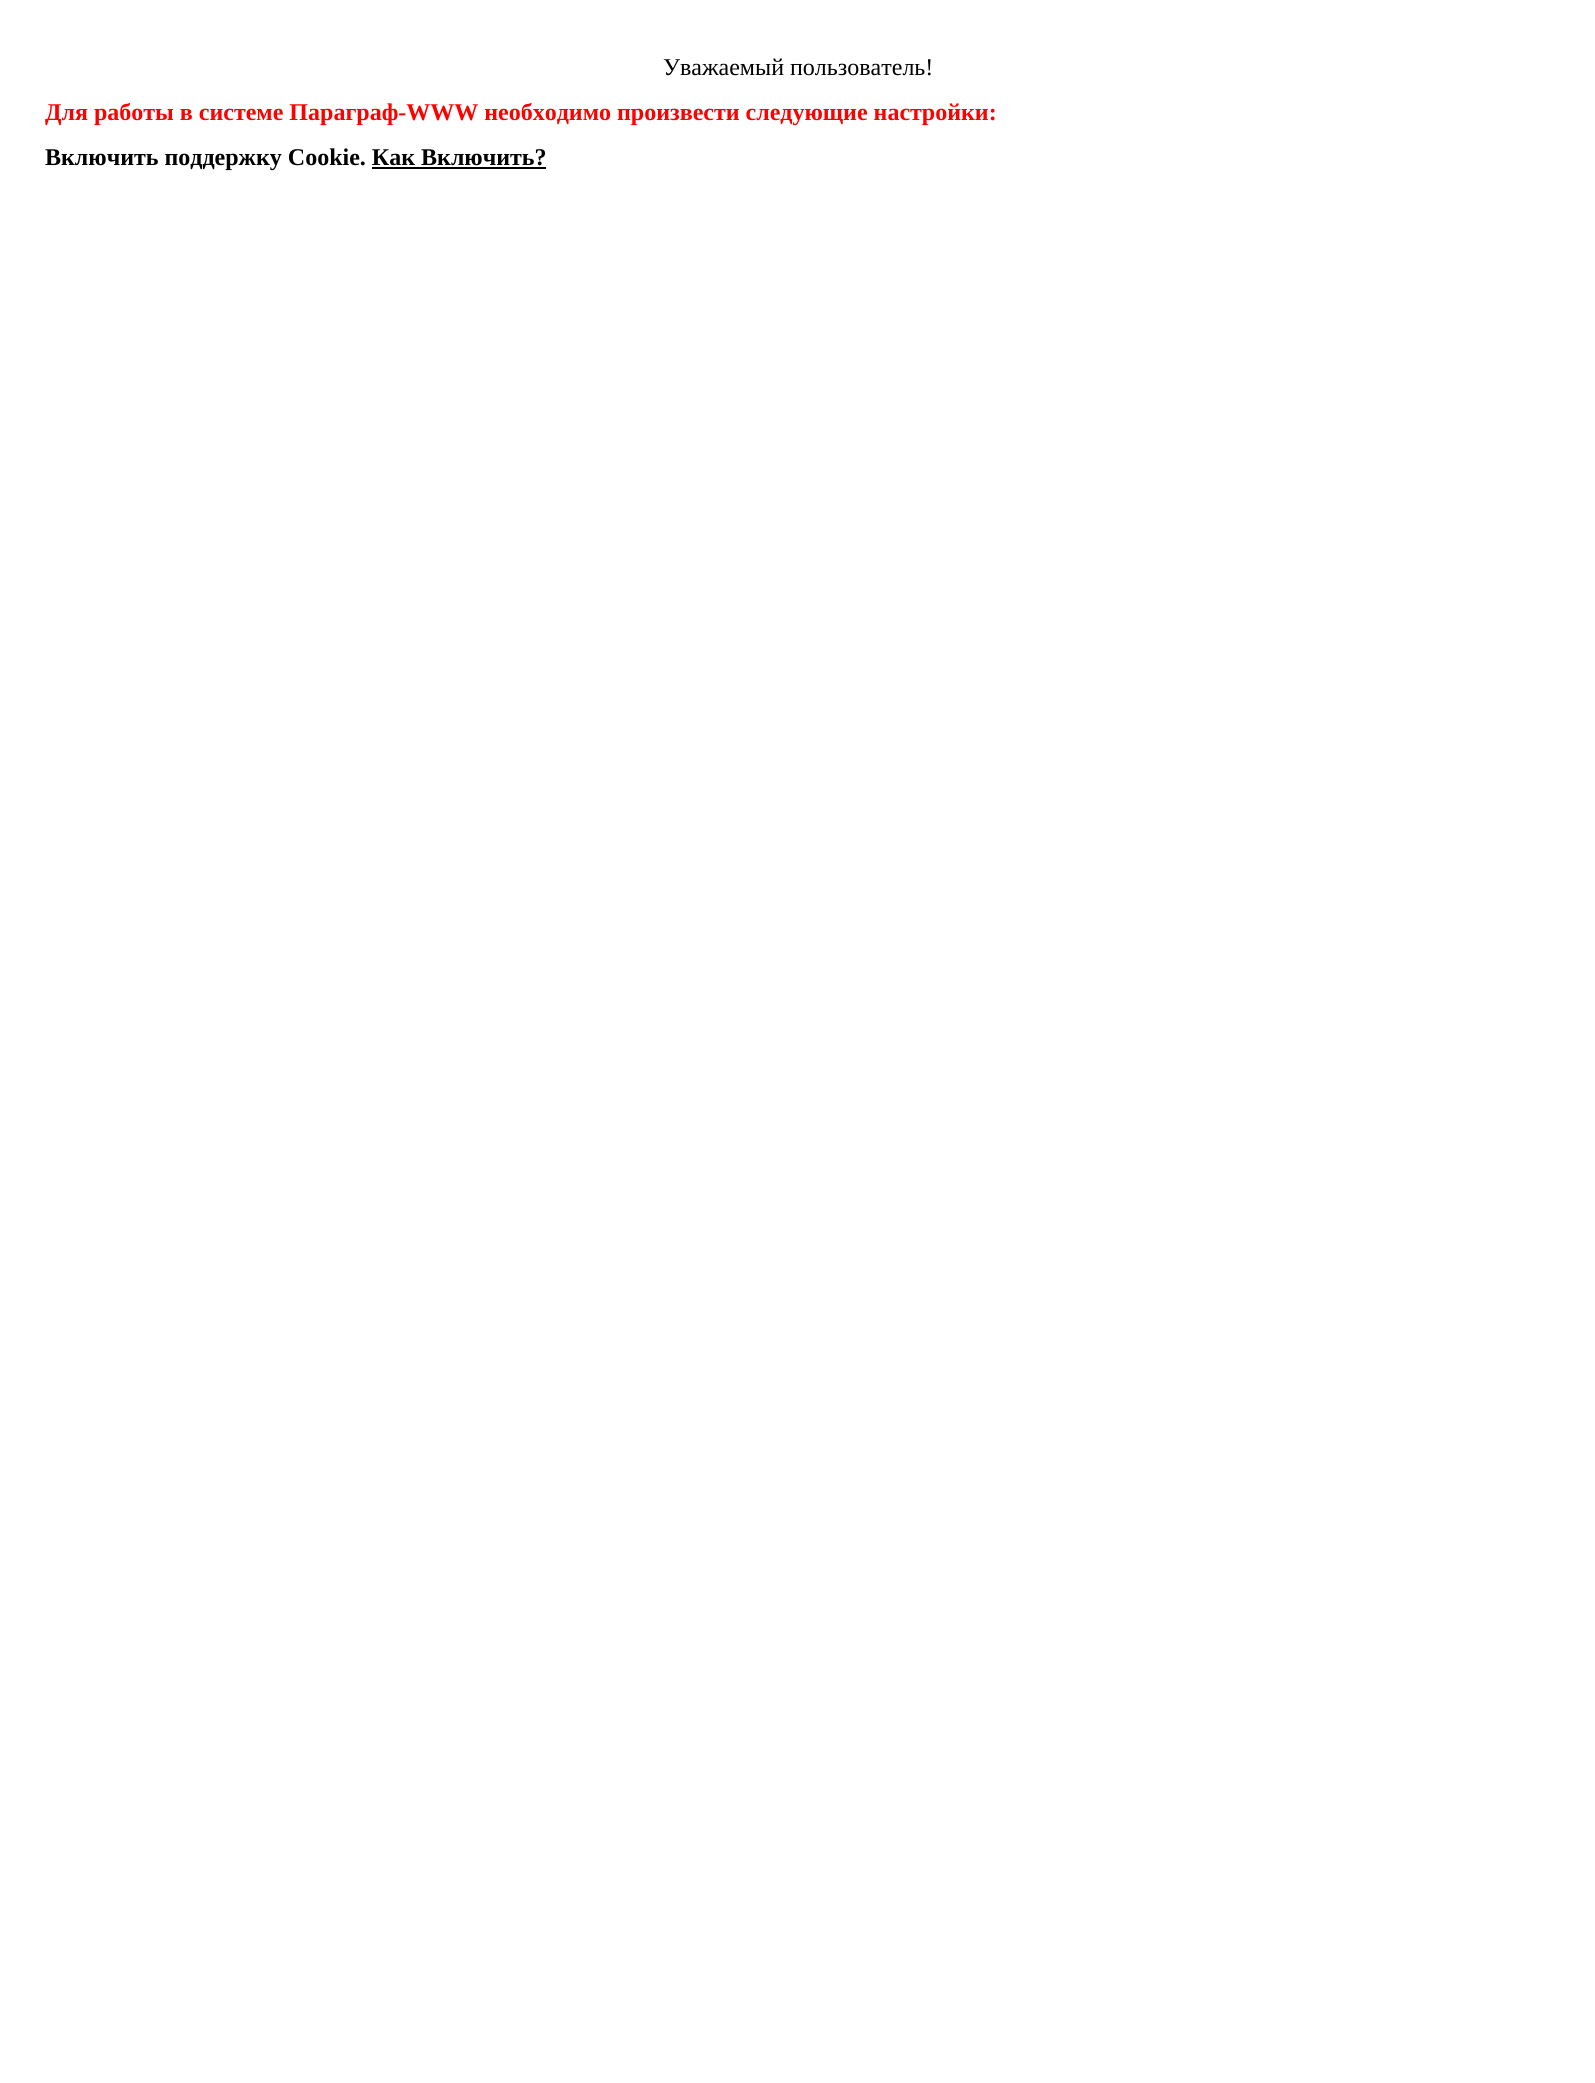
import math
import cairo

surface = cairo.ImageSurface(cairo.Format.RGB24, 1595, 2083)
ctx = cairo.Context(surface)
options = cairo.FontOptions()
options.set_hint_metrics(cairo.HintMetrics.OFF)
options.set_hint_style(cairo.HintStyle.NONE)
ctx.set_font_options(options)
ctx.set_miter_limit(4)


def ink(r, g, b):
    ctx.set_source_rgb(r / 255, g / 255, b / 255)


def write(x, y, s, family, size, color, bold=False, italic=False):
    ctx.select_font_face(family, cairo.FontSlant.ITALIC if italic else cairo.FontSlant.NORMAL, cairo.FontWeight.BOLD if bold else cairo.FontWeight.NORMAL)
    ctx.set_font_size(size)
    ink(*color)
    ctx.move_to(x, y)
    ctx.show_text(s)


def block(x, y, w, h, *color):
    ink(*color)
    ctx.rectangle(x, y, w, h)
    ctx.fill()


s1 = dict(family="Liberation Serif", size=24, color=(0, 0, 0))
s2 = dict(family="Liberation Serif", size=24, color=(255, 0, 0), bold=True)
s3 = dict(family="Liberation Serif", size=24, color=(0, 0, 0), bold=True)

ink(255, 255, 255)
ctx.paint()
write(663, 75, "Уважаемый пользователь!", **s1)
write(45, 120, "Для работы в системе Параграф-WWW необходимо произвести следующие настройки:", **s2)
write(45, 165, "Включить поддержку Cookie. Как Включить?", **s3)
block(372, 167, 174, 2, 0, 0, 0)
surface.write_to_png("screenshot.png")
